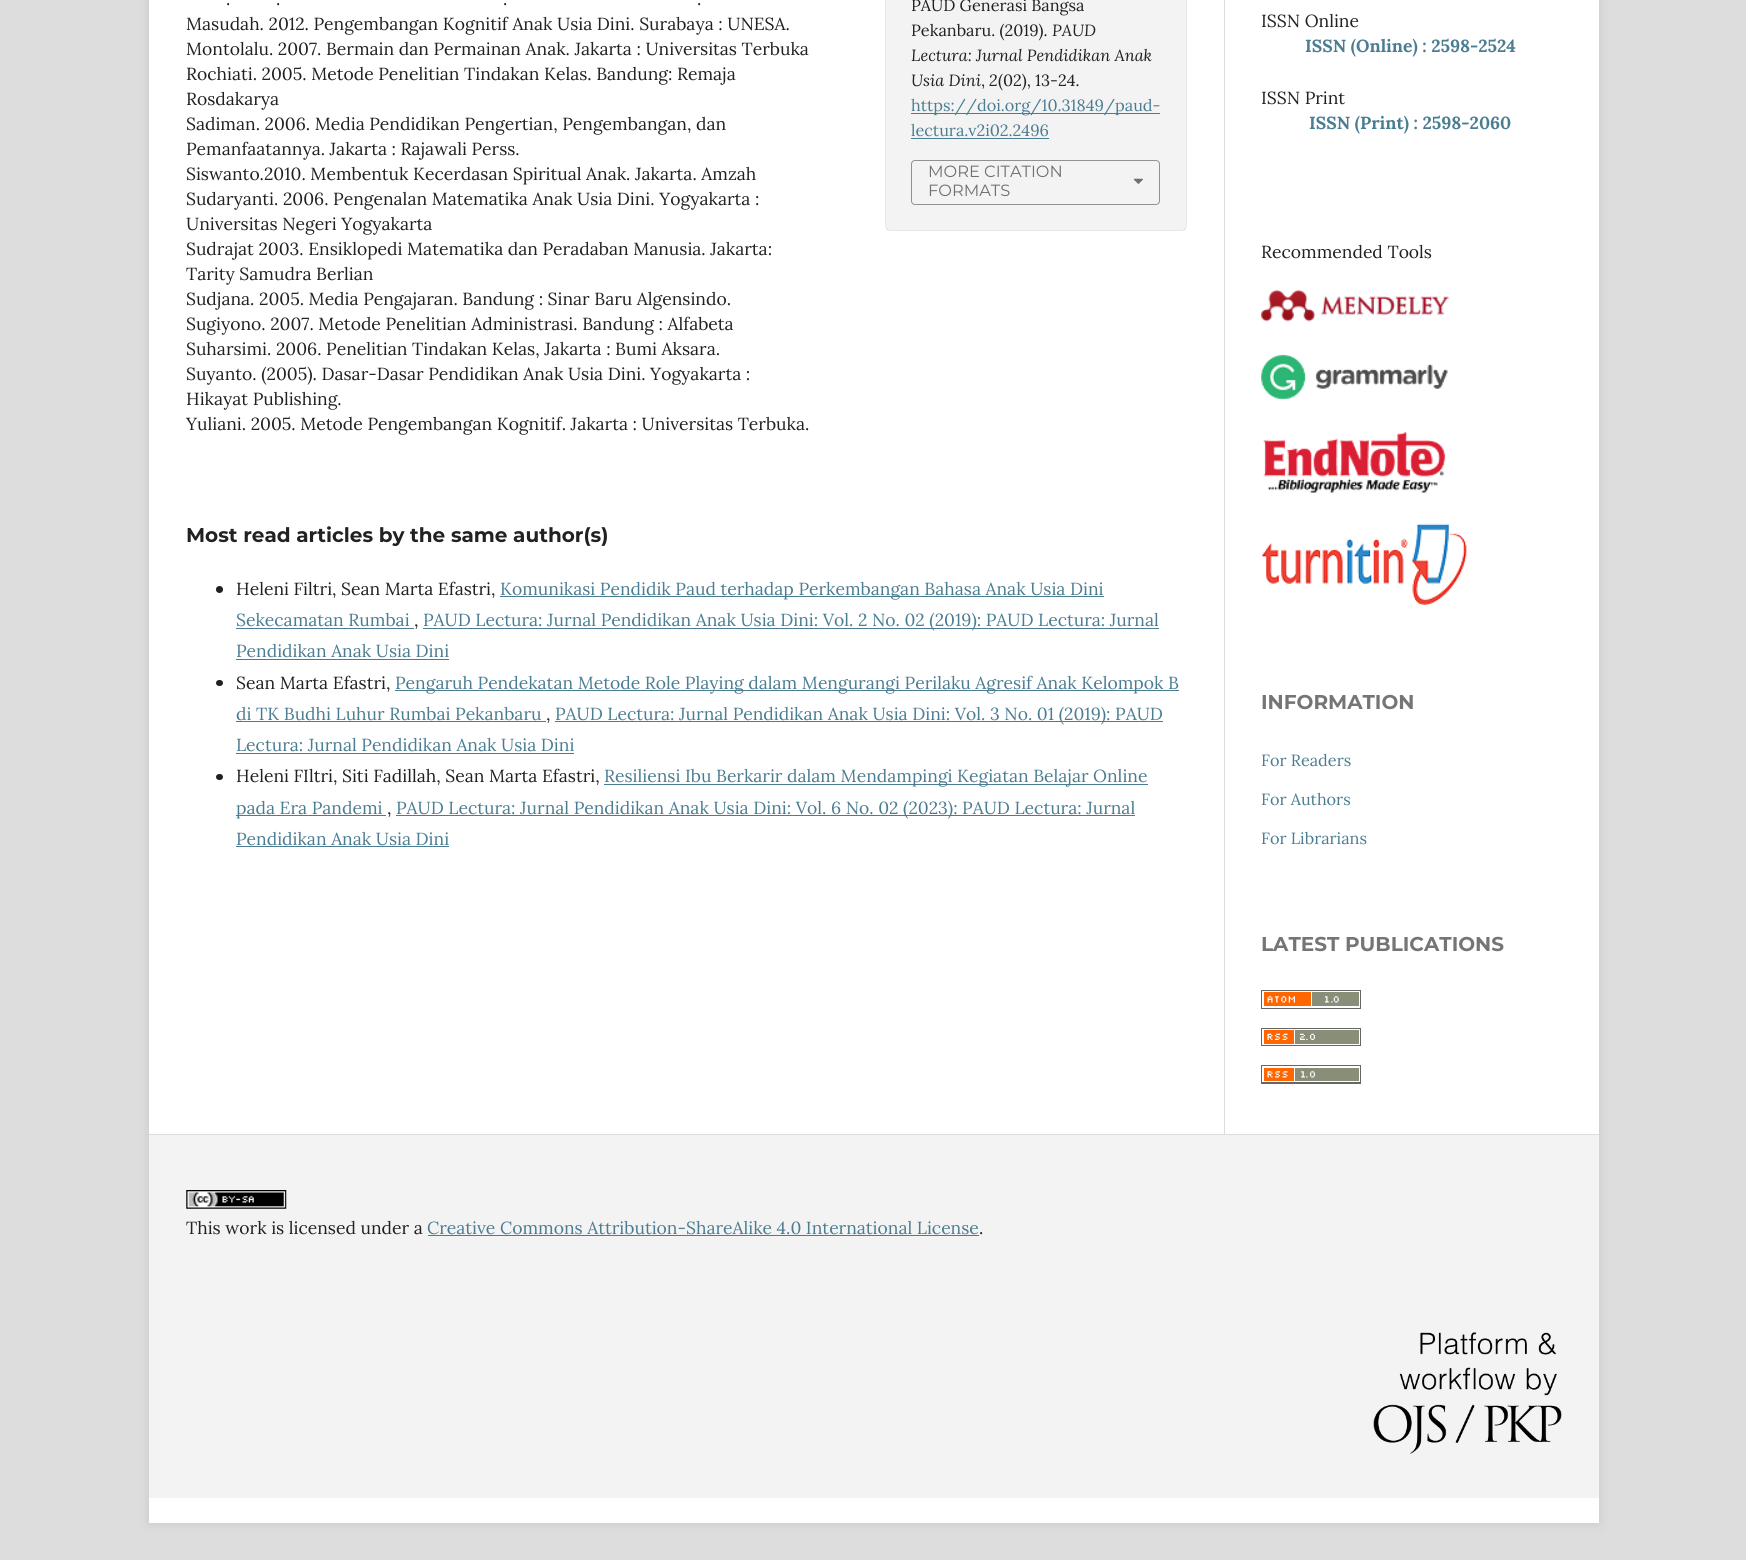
import math
import cairo

surface = cairo.ImageSurface(cairo.Format.RGB24, 1746, 1560)
ctx = cairo.Context(surface)
options = cairo.FontOptions()
options.set_hint_metrics(cairo.HintMetrics.OFF)
options.set_hint_style(cairo.HintStyle.NONE)
ctx.set_font_options(options)
ctx.set_miter_limit(4)


def ink(r, g, b):
    ctx.set_source_rgb(r / 255, g / 255, b / 255)


def write(x, y, s, family, size, color, bold=False, italic=False):
    ctx.select_font_face(family, cairo.FontSlant.ITALIC if italic else cairo.FontSlant.NORMAL, cairo.FontWeight.BOLD if bold else cairo.FontWeight.NORMAL)
    ctx.set_font_size(size)
    ink(*color)
    ctx.move_to(x, y)
    ctx.show_text(s)


def block(x, y, w, h, *color):
    ink(*color)
    ctx.rectangle(x, y, w, h)
    ctx.fill()


def round_path(x, y, w, h, r):
    ctx.new_sub_path()
    for i, (u, v) in enumerate([(x + w - r, y + h - r), (x + r, y + h - r), (x + r, y + r), (x + w - r, y + r)]):
        ctx.arc(u, v, r, i * math.pi / 2, (i + 1) * math.pi / 2)
    ctx.close_path()


def blur_box(x, y, w, h, r, blur, alpha):
    ctx.push_group_with_content(cairo.Content.ALPHA)
    ctx.set_operator(cairo.Operator.SOURCE)
    for i in range(15, -16, -2):
        e = blur * i / 6
        if min(w, h) + 2 * e > 0:
            ctx.set_source_rgba(0, 0, 0, alpha * math.erfc((i - 1) / 8.5) / 2)
            round_path(x - e, y - e, w + 2 * e, h + 2 * e, max(0, min(r + e + blur * .6, min(w, h) / 2 + e)))
            ctx.fill()
    ctx.mask(ctx.pop_group())


def paste(path, x, y, w, h):
    ctx.save()
    ctx.set_source_surface(cairo.ImageSurface.create_from_png(path), x, y)
    ctx.rectangle(x, y, w, h)
    ctx.fill()
    ctx.restore()


s1 = dict(family="Lora", size=17.5, color=(33, 33, 33))
s2 = dict(family="Lora", size=16.25, color=(33, 33, 33))
s3 = dict(family="Lora", size=16.25, color=(33, 33, 33), italic=True)
s4 = dict(family="Lora", size=16.25, color=(75, 125, 146))
s5 = dict(family="Montserrat", size=16.25, color=(111, 111, 111))
s6 = dict(family="Montserrat", size=20, color=(33, 33, 33), bold=True)
s7 = dict(family="Lora", size=17.5, color=(75, 125, 146))
s8 = dict(family="Lora", size=17.5, color=(75, 125, 146), bold=True)
s9 = dict(family="Montserrat", size=20, color=(117, 117, 117), bold=True)

ink(221, 221, 221)
ctx.paint()
ink(0, 0, 0)
blur_box(149, -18, 1450, 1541, 0, 6, 0.1)
block(149, 0, 1450, 1134, 255, 255, 255)
write(226, 5, ".", **s1)
write(276, 5, ".", **s1)
write(503, 5, ".", **s1)
write(697, 5, ".", **s1)
write(186, 30, "Masudah. 2012. Pengembangan Kognitif Anak Usia Dini. Surabaya : UNESA.", **s1)
write(186, 55, "Montolalu. 2007. Bermain dan Permainan Anak. Jakarta : Universitas Terbuka", **s1)
write(186, 80, "Rochiati. 2005. Metode Penelitian Tindakan Kelas. Bandung: Remaja", **s1)
write(186, 105, "Rosdakarya", **s1)
write(186, 130, "Sadiman. 2006. Media Pendidikan Pengertian, Pengembangan, dan", **s1)
write(186, 155, "Pemanfaatannya. Jakarta : Rajawali Perss.", **s1)
write(186, 180, "Siswanto.2010. Membentuk Kecerdasan Spiritual Anak. Jakarta. Amzah", **s1)
write(186, 205, "Sudaryanti. 2006. Pengenalan Matematika Anak Usia Dini. Yogyakarta :", **s1)
write(186, 230, "Universitas Negeri Yogyakarta", **s1)
write(186, 255, "Sudrajat 2003. Ensiklopedi Matematika dan Peradaban Manusia. Jakarta:", **s1)
write(186, 280, "Tarity Samudra Berlian", **s1)
write(186, 305, "Sudjana. 2005. Media Pengajaran. Bandung : Sinar Baru Algensindo.", **s1)
write(186, 330, "Sugiyono. 2007. Metode Penelitian Administrasi. Bandung : Alfabeta", **s1)
write(186, 355, "Suharsimi. 2006. Penelitian Tindakan Kelas, Jakarta : Bumi Aksara.", **s1)
write(186, 380, "Suyanto. (2005). Dasar-Dasar Pendidikan Anak Usia Dini. Yogyakarta :", **s1)
write(186, 405, "Hikayat Publishing.", **s1)
write(186, 430, "Yuliani. 2005. Metode Pengembangan Kognitif. Jakarta : Universitas Terbuka.", **s1)
ctx.save()
ctx.set_fill_rule(cairo.FillRule.EVEN_ODD)
ctx.new_path()
ctx.move_to(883, 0)
ctx.line_to(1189, 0)
ctx.line_to(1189, 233)
ctx.line_to(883, 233)
ctx.close_path()
ctx.move_to(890, -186)
ctx.line_to(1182, -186)
ctx.curve_to(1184, -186, 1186, -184, 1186, -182)
ctx.line_to(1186, 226)
ctx.curve_to(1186, 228, 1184, 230, 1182, 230)
ctx.line_to(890, 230)
ctx.curve_to(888, 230, 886, 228, 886, 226)
ctx.line_to(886, -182)
ctx.curve_to(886, -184, 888, -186, 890, -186)
ctx.close_path()
ctx.clip()
ink(0, 0, 0)
blur_box(886, -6, 300, 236, 4, 0.5, 0.4)
ctx.restore()
ctx.set_source_rgba(0, 0, 0, 0.05)
ctx.rectangle(886, 0, 300, 230)
ctx.fill()
write(911, 11, "PAUD Generasi Bangsa", **s2)
write(911, 36, "Pekanbaru. (2019).", **s2)
write(1052, 36, "PAUD", **s3)
write(911, 61, "Lectura: Jurnal Pendidikan Anak", **s3)
write(911, 86, "Usia Dini", **s3)
write(989, 86, "2", **s3)
write(998, 86, "(02), 13-24.", **s2)
write(981, 86, ",", **s2)
block(911, 113, 249, 1, 75, 125, 146)
write(911, 111, "https://doi.org/10.31849/paud-", **s4)
write(911, 136, "lectura.v2i02.2496", **s4)
block(911, 138, 138, 1, 75, 125, 146)
round_path(911.5, 160.5, 248, 44, 3.5)
ink(145, 145, 145)
ctx.set_line_width(1)
ctx.stroke()
write(928, 177, "MORE CITATION", **s5)
paste("pic1.png", 1133, 178, 10, 6)
write(928, 196, "FORMATS", **s5)
write(186, 542, "Most read articles by the same author(s)", **s6)
ctx.new_path()
ctx.arc(219.5, 589.5, 3.5, 0, 2 * math.pi)
ctx.fill()
write(236, 595, "Heleni Filtri, Sean Marta Efastri,", **s1)
block(500, 596, 604, 1, 75, 125, 146)
write(500, 595, "Komunikasi Pendidik Paud terhadap Perkembangan Bahasa Anak Usia Dini", **s7)
write(236, 626, "Sekecamatan Rumbai", **s7)
block(236, 628, 178, 1, 75, 125, 146)
write(414, 626, ",", **s1)
block(423, 628, 736, 1, 75, 125, 146)
write(423, 626, "PAUD Lectura: Jurnal Pendidikan Anak Usia Dini: Vol. 2 No. 02 (2019): PAUD Lectura: Jurnal", **s7)
write(236, 657, "Pendidikan Anak Usia Dini", **s7)
block(236, 659, 213, 1, 75, 125, 146)
ink(33, 33, 33)
round_path(216, 680, 7, 6, 3)
ctx.fill()
write(236, 689, "Sean Marta Efastri,", **s1)
block(395, 690, 784, 1, 75, 125, 146)
write(395, 689, "Pengaruh Pendekatan Metode Role Playing dalam Mengurangi Perilaku Agresif Anak Kelompok B", **s7)
write(236, 720, "di TK Budhi Luhur Rumbai Pekanbaru", **s7)
block(236, 721, 310, 1, 75, 125, 146)
write(546, 720, ",", **s1)
block(555, 721, 608, 1, 75, 125, 146)
write(555, 720, "PAUD Lectura: Jurnal Pendidikan Anak Usia Dini: Vol. 3 No. 01 (2019): PAUD", **s7)
write(236, 751, "Lectura: Jurnal Pendidikan Anak Usia Dini", **s7)
block(236, 753, 338, 1, 75, 125, 146)
ink(33, 33, 33)
round_path(216, 774, 7, 6, 3)
ctx.fill()
write(236, 782, "Heleni FIltri, Siti Fadillah, Sean Marta Efastri,", **s1)
block(604, 784, 544, 1, 75, 125, 146)
write(604, 782, "Resiliensi Ibu Berkarir dalam Mendampingi Kegiatan Belajar Online", **s7)
block(236, 815, 150, 1, 75, 125, 146)
write(236, 814, "pada Era Pandemi", **s7)
write(387, 814, ",", **s1)
block(396, 815, 739, 1, 75, 125, 146)
write(396, 814, "PAUD Lectura: Jurnal Pendidikan Anak Usia Dini: Vol. 6 No. 02 (2023): PAUD Lectura: Jurnal", **s7)
write(236, 845, "Pendidikan Anak Usia Dini", **s7)
block(236, 846, 213, 1, 75, 125, 146)
block(1224, 0, 1, 1134, 221, 221, 221)
write(1261, 27, "ISSN Online", **s1)
write(1305, 52, "ISSN (Online) : 2598-2524", **s8)
write(1261, 104, "ISSN Print", **s1)
write(1309, 129, "ISSN (Print) : 2598-2060", **s8)
write(1261, 258, "Recommended Tools", **s1)
paste("pic2.png", 1261, 289, 188, 33)
paste("pic3.png", 1261, 354, 187, 47)
paste("pic4.png", 1263, 431, 183, 62)
paste("pic5.png", 1262, 523, 205, 82)
write(1261, 709, "INFORMATION", **s9)
write(1261, 766, "For Readers", **s4)
write(1261, 805, "For Authors", **s4)
write(1261, 844, "For Librarians", **s4)
write(1261, 951, "LATEST PUBLICATIONS", **s9)
paste("pic6.png", 1261, 990, 100, 19)
paste("pic7.png", 1261, 1028, 100, 18)
paste("pic8.png", 1261, 1065, 100, 19)
block(149, 1135, 1450, 363, 243, 243, 243)
block(149, 1134, 1450, 1, 221, 221, 221)
block(149, 1498, 1450, 25, 255, 255, 255)
paste("pic9.png", 186, 1190, 101, 19)
write(186, 1234, "This work is licensed under a", **s1)
write(427, 1234, "Creative Commons Attribution-ShareAlike 4.0 International License", **s7)
block(428, 1235, 551, 1, 75, 125, 146)
write(979, 1234, ".", **s1)
paste("pic10.png", 1373, 1332, 189, 122)
surface.write_to_png("screenshot.png")
